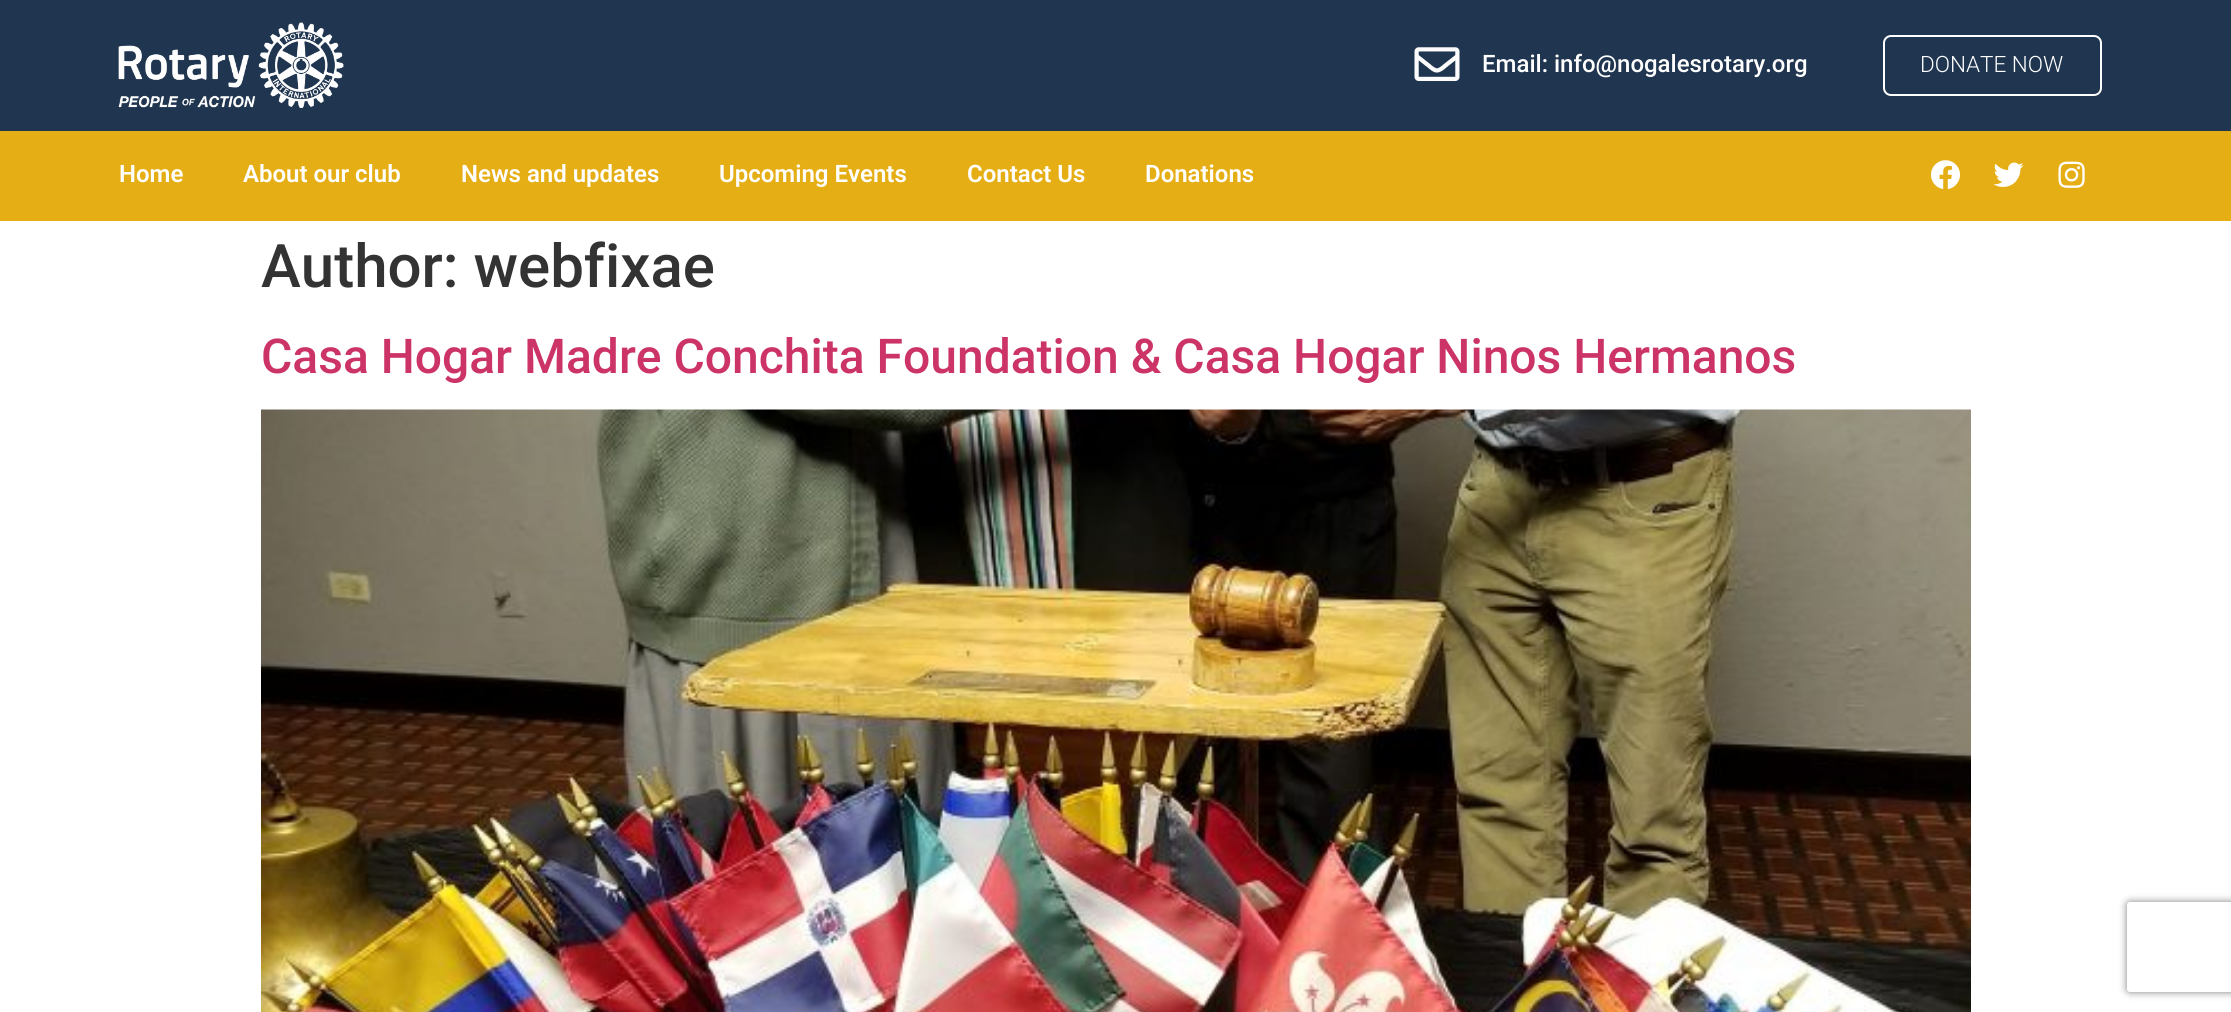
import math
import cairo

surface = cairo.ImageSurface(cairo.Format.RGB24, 2231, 1012)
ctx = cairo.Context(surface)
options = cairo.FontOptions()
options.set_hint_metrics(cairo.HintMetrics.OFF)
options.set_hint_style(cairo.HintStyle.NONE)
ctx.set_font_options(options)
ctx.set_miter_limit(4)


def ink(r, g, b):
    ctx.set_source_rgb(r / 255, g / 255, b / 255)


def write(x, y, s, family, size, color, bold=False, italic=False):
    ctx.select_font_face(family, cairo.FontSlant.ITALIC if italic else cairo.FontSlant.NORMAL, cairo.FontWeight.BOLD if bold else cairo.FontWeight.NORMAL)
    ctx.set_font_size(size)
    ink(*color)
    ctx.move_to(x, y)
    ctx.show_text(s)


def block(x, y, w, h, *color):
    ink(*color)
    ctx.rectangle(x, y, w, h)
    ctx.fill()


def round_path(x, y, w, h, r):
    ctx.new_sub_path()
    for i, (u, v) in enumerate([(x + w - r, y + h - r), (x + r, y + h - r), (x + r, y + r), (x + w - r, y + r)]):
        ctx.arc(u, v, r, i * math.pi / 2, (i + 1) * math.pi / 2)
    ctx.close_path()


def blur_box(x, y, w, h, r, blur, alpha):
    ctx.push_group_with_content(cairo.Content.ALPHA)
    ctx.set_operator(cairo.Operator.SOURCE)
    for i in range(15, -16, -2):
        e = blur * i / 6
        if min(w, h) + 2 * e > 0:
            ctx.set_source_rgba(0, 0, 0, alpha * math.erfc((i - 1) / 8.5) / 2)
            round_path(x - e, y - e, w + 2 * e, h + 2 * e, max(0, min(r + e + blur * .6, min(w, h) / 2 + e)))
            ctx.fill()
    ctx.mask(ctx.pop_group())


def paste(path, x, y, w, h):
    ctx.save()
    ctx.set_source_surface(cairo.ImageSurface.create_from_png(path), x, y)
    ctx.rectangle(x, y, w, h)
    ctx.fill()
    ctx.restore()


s1 = dict(family="Roboto Medium", size=24, color=(255, 255, 255))
s2 = dict(family="Roboto Light", size=22.5, color=(255, 255, 255))
s3 = dict(family="Roboto SemiBold", size=24, color=(255, 255, 255))
s4 = dict(family="Roboto Medium", size=60, color=(51, 51, 51))
s5 = dict(family="Roboto Medium", size=48, color=(204, 51, 102))

ink(255, 255, 255)
ctx.paint()
block(0, 0, 2231, 131, 32, 53, 79)
paste("pic1.png", 118, 22, 226, 86)
paste("pic2.png", 1414, 47, 46, 34)
write(1482, 72, "Email: info@nogalesrotary.org", **s1)
round_path(1884, 36, 217, 59, 7)
ctx.stroke()
write(1920, 72, "DONATE NOW", **s2)
block(0, 131, 2231, 90, 230, 174, 21)
write(119, 182, "Home", **s3)
write(243, 182, "About our club", **s3)
write(461, 182, "News and updates", **s3)
write(719, 182, "Upcoming Events", **s3)
write(967, 182, "Contact Us", **s3)
write(1145, 182, "Donations", **s3)
paste("pic3.png", 1931, 160, 29, 29)
paste("pic4.png", 1993, 162, 31, 25)
paste("pic5.png", 2058, 161, 27, 27)
write(261, 287, "Author: webfixae", **s4)
write(261, 373, "Casa Hogar Madre Conchita Foundation & Casa Hogar Ninos Hermanos", **s5)
paste("pic6.png", 261, 409, 1710, 603)
ctx.save()
ctx.set_fill_rule(cairo.FillRule.EVEN_ODD)
ctx.new_path()
ctx.move_to(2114, 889)
ctx.line_to(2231, 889)
ctx.line_to(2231, 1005)
ctx.line_to(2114, 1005)
ctx.close_path()
ctx.move_to(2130, 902)
ctx.line_to(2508, 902)
ctx.curve_to(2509.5, 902, 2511, 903.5, 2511, 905)
ctx.line_to(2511, 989)
ctx.curve_to(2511, 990.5, 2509.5, 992, 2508, 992)
ctx.line_to(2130, 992)
ctx.curve_to(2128.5, 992, 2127, 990.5, 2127, 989)
ctx.line_to(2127, 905)
ctx.curve_to(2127, 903.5, 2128.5, 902, 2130, 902)
ctx.close_path()
ctx.clip()
ink(128, 128, 128)
blur_box(2127, 902, 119, 90, 3, 4, 1)
ctx.restore()
surface.write_to_png("screenshot.png")
